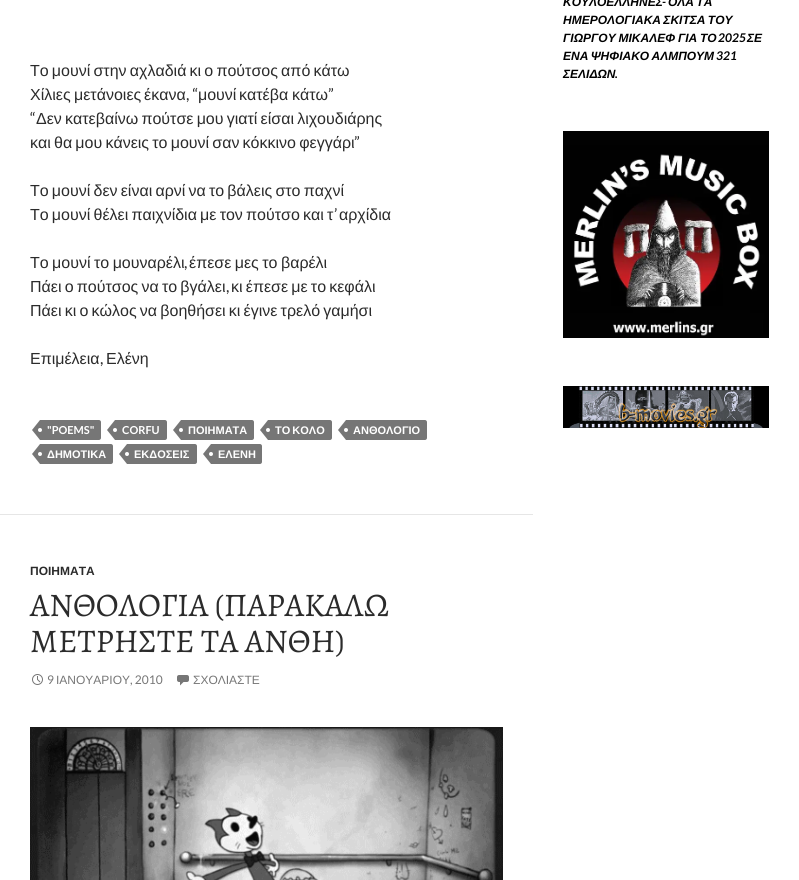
import math
import cairo

surface = cairo.ImageSurface(cairo.Format.RGB24, 799, 880)
ctx = cairo.Context(surface)
options = cairo.FontOptions()
options.set_hint_metrics(cairo.HintMetrics.OFF)
options.set_hint_style(cairo.HintStyle.NONE)
ctx.set_font_options(options)
ctx.set_miter_limit(4)


def ink(r, g, b):
    ctx.set_source_rgb(r / 255, g / 255, b / 255)


def write(x, y, s, family, size, color, bold=False, italic=False):
    ctx.select_font_face(family, cairo.FontSlant.ITALIC if italic else cairo.FontSlant.NORMAL, cairo.FontWeight.BOLD if bold else cairo.FontWeight.NORMAL)
    ctx.set_font_size(size)
    ink(*color)
    ctx.move_to(x, y)
    ctx.show_text(s)


def write_spaced(x, y, s, letter, word):
    ctx.move_to(x, y)
    for ch in s:
        ctx.show_text(ch)
        ctx.rel_move_to(letter + word * (ch == ' '), 0)


def block(x, y, w, h, *color):
    ink(*color)
    ctx.rectangle(x, y, w, h)
    ctx.fill()


def paste(path, x, y, w, h):
    ctx.save()
    ctx.set_source_surface(cairo.ImageSurface.create_from_png(path), x, y)
    ctx.rectangle(x, y, w, h)
    ctx.fill()
    ctx.restore()


s1 = dict(family="Liberation Sans", size=12, color=(0, 0, 0), bold=True, italic=True)
s2 = dict(family="Lato", size=12, color=(0, 0, 0), bold=True, italic=True)
s3 = dict(family="Liberation Sans", size=16, color=(43, 43, 43))
s4 = dict(family="Lato", size=16, color=(43, 43, 43))
s5 = dict(family="Lato", size=11, color=(255, 255, 255), bold=True)
s6 = dict(family="Liberation Sans", size=11, color=(255, 255, 255), bold=True)
s7 = dict(family="Liberation Sans", size=12, color=(43, 43, 43), bold=True)
s8 = dict(family="Alegreya", size=33, color=(43, 43, 43))
s9 = dict(family="Lato", size=12, color=(118, 118, 118))
s10 = dict(family="Liberation Sans", size=12, color=(118, 118, 118))

ink(255, 255, 255)
ctx.paint()
write(563, 6, "ΚΟΥΛΟΕΛΛΗΝΕΣ", **s1)
write(662, 6, "-", **s2)
ctx.select_font_face("Liberation Sans", cairo.FontSlant.ITALIC, cairo.FontWeight.BOLD)
write_spaced(668, 6, "ΟΛΑ ΤΑ", 0, -1)
write_spaced(563, 24, "ΗΜΕΡΟΛΟΓΙΑΚΑ ΣΚΙΤΣΑ ΤΟΥ", 0, -1)
write_spaced(563, 42, "ΓΙΩΡΓΟΥ ΜΙΚΑΛΕΦ ΓΙΑ ΤΟ", 0, -0.5)
write(718, 42, "2025", **s2)
write(747, 42, "ΣΕ", **s1)
write_spaced(563, 60, "ΕΝΑ ΨΗΦΙΑΚΟ ΑΛΜΠΟΥΜ", 0, -1)
write(716, 60, "321", **s2)
write(563, 78, "ΣΕΛΙΔΩΝ", **s1)
write(615, 78, ".", **s2)
paste("pic1.png", 563, 131, 206, 207)
paste("pic2.png", 563, 386, 206, 42)
ctx.select_font_face("Liberation Sans")
ctx.set_font_size(16)
ink(43, 43, 43)
write_spaced(30, 76, "Το μουνί στην αχλαδιά κι ο πούτσος από κάτω", 0, -1.25)
write(30, 100, "Χίλιες", **s3)
write(74, 100, "μετάνοιες", **s3)
write(144, 100, "έκανα", **s3)
write(186, 100, ", “", **s4)
write(198, 100, "μουνί", **s3)
write(239, 100, "κατέβα", **s3)
write(292, 100, "κάτω", **s3)
write(328, 100, "”", **s4)
write(30, 124, "“", **s4)
ctx.select_font_face("Liberation Sans")
write_spaced(36, 124, "Δεν κατεβαίνω πούτσε μου γιατί είσαι λιχουδιάρης", 0, -1.25)
write_spaced(30, 148, "και θα μου κάνεις το μουνί σαν κόκκινο φεγγάρι", 0, -1.25)
write(354, 148, "”", **s4)
ctx.select_font_face("Liberation Sans")
write_spaced(30, 196, "Το μουνί δεν είναι αρνί να το βάλεις στο παχνί", 0, -1.25)
write_spaced(30, 220, "Το μουνί θέλει παιχνίδια με τον πούτσο και τ", 0, -1.25)
write(334, 220, "’", **s4)
write(339, 220, "αρχίδια", **s3)
write_spaced(30, 268, "Το μουνί το μουναρέλι", 0, -1)
write(184, 268, ",", **s4)
ctx.select_font_face("Liberation Sans")
write_spaced(189, 268, "έπεσε μες το βαρέλι", 0, -1)
write_spaced(30, 292, "Πάει ο πούτσος να το βγάλει", 0, -1.25)
write(226, 292, ",", **s4)
ctx.select_font_face("Liberation Sans")
write_spaced(231, 292, "κι έπεσε με το κεφάλι", 0, -1.25)
write_spaced(30, 316, "Πάει κι ο κώλος να βοηθήσει κι έγινε τρελό γαμήσι", 0, -1.25)
write(30, 364, "Επιμέλεια", **s3)
write(100, 364, ",", **s4)
write(106, 364, "Ελένη", **s3)
ink(118, 118, 118)
ctx.new_path()
ctx.move_to(40, 420)
ctx.line_to(99, 420)
ctx.curve_to(100, 420, 101, 421, 101, 422)
ctx.line_to(101, 438)
ctx.curve_to(101, 439, 100, 440, 99, 440)
ctx.line_to(40, 440)
ctx.close_path()
ctx.fill()
ctx.new_path()
ctx.move_to(40, 420)
ctx.line_to(40, 440)
ctx.line_to(32, 430)
ctx.close_path()
ctx.fill()
write(47, 434, "\"POEMS\"", **s5)
ctx.new_path()
ctx.arc(40, 430, 2, 0, 2 * math.pi)
ctx.fill()
ink(118, 118, 118)
ctx.new_path()
ctx.move_to(115, 420)
ctx.line_to(165, 420)
ctx.curve_to(166, 420, 167, 421, 167, 422)
ctx.line_to(167, 438)
ctx.curve_to(167, 439, 166, 440, 165, 440)
ctx.line_to(115, 440)
ctx.close_path()
ctx.fill()
ctx.new_path()
ctx.move_to(115, 420)
ctx.line_to(115, 440)
ctx.line_to(107, 430)
ctx.close_path()
ctx.fill()
write(122, 434, "CORFU", **s5)
ctx.new_path()
ctx.arc(115, 430, 2, 0, 2 * math.pi)
ctx.fill()
ink(118, 118, 118)
ctx.new_path()
ctx.move_to(181, 420)
ctx.line_to(252, 420)
ctx.curve_to(253, 420, 254, 421, 254, 422)
ctx.line_to(254, 438)
ctx.curve_to(254, 439, 253, 440, 252, 440)
ctx.line_to(181, 440)
ctx.close_path()
ctx.fill()
ctx.new_path()
ctx.move_to(181, 420)
ctx.line_to(181, 440)
ctx.line_to(173, 430)
ctx.close_path()
ctx.fill()
write(188, 434, "ΠΟΙΗΜΑΤΑ", **s6)
ctx.new_path()
ctx.arc(181, 430, 2, 0, 2 * math.pi)
ctx.fill()
ink(118, 118, 118)
ctx.new_path()
ctx.move_to(268, 420)
ctx.line_to(330, 420)
ctx.curve_to(331, 420, 332, 421, 332, 422)
ctx.line_to(332, 438)
ctx.curve_to(332, 439, 331, 440, 330, 440)
ctx.line_to(268, 440)
ctx.close_path()
ctx.fill()
ctx.new_path()
ctx.move_to(268, 420)
ctx.line_to(268, 440)
ctx.line_to(260, 430)
ctx.close_path()
ctx.fill()
ink(255, 255, 255)
write_spaced(275, 434, "ΤΟ ΚΟΛΟ", 0, -1)
ctx.new_path()
ctx.arc(268, 430, 2, 0, 2 * math.pi)
ctx.fill()
ink(118, 118, 118)
ctx.new_path()
ctx.move_to(346, 420)
ctx.line_to(425, 420)
ctx.curve_to(426, 420, 427, 421, 427, 422)
ctx.line_to(427, 438)
ctx.curve_to(427, 439, 426, 440, 425, 440)
ctx.line_to(346, 440)
ctx.close_path()
ctx.fill()
ctx.new_path()
ctx.move_to(346, 420)
ctx.line_to(346, 440)
ctx.line_to(338, 430)
ctx.close_path()
ctx.fill()
write(353, 434, "ΑΝΘΟΛΟΓΙΟ", **s6)
ctx.new_path()
ctx.arc(346, 430, 2, 0, 2 * math.pi)
ctx.fill()
ink(118, 118, 118)
ctx.new_path()
ctx.move_to(40, 444)
ctx.line_to(111, 444)
ctx.curve_to(112, 444, 113, 445, 113, 446)
ctx.line_to(113, 462)
ctx.curve_to(113, 463, 112, 464, 111, 464)
ctx.line_to(40, 464)
ctx.close_path()
ctx.fill()
ctx.new_path()
ctx.move_to(40, 444)
ctx.line_to(40, 464)
ctx.line_to(32, 454)
ctx.close_path()
ctx.fill()
write(47, 458, "ΔΗΜΟΤΙΚΑ", **s6)
ctx.new_path()
ctx.arc(40, 454, 2, 0, 2 * math.pi)
ctx.fill()
ink(118, 118, 118)
ctx.new_path()
ctx.move_to(127, 444)
ctx.line_to(195, 444)
ctx.curve_to(196, 444, 197, 445, 197, 446)
ctx.line_to(197, 462)
ctx.curve_to(197, 463, 196, 464, 195, 464)
ctx.line_to(127, 464)
ctx.close_path()
ctx.fill()
ctx.new_path()
ctx.move_to(127, 444)
ctx.line_to(127, 464)
ctx.line_to(119, 454)
ctx.close_path()
ctx.fill()
write(134, 458, "ΕΚΔΟΣΕΙΣ", **s6)
ctx.new_path()
ctx.arc(127, 454, 2, 0, 2 * math.pi)
ctx.fill()
ink(118, 118, 118)
ctx.new_path()
ctx.move_to(211, 444)
ctx.line_to(260, 444)
ctx.curve_to(261, 444, 262, 445, 262, 446)
ctx.line_to(262, 462)
ctx.curve_to(262, 463, 261, 464, 260, 464)
ctx.line_to(211, 464)
ctx.close_path()
ctx.fill()
ctx.new_path()
ctx.move_to(211, 444)
ctx.line_to(211, 464)
ctx.line_to(203, 454)
ctx.close_path()
ctx.fill()
write(218, 458, "ΕΛΕΝΗ", **s6)
ctx.new_path()
ctx.arc(211, 454, 2, 0, 2 * math.pi)
ctx.fill()
block(0, 514, 533, 1, 230, 230, 230)
write(30, 575, "ΠΟΙΗΜΑΤΑ", **s7)
write(30, 616, "ΑΝΘΟΛΟΓΙΑ (ΠΑΡΑΚΑΛΩ", **s8)
write(30, 652, "ΜΕΤΡΗΣΤΕ ΤΑ ΑΝΘΗ)", **s8)
paste("pic3.png", 32, 674, 11, 11)
write(47, 684, "9", **s9)
write(56, 684, "ΙΑΝΟΥΑΡΙΟΥ", **s10)
write(130, 684, ", 2010", **s9)
paste("pic4.png", 177, 675, 12, 11)
write(193, 684, "ΣΧΟΛΙΑΣΤΕ", **s10)
paste("pic5.png", 30, 727, 473, 153)
surface.write_to_png("screenshot.png")
